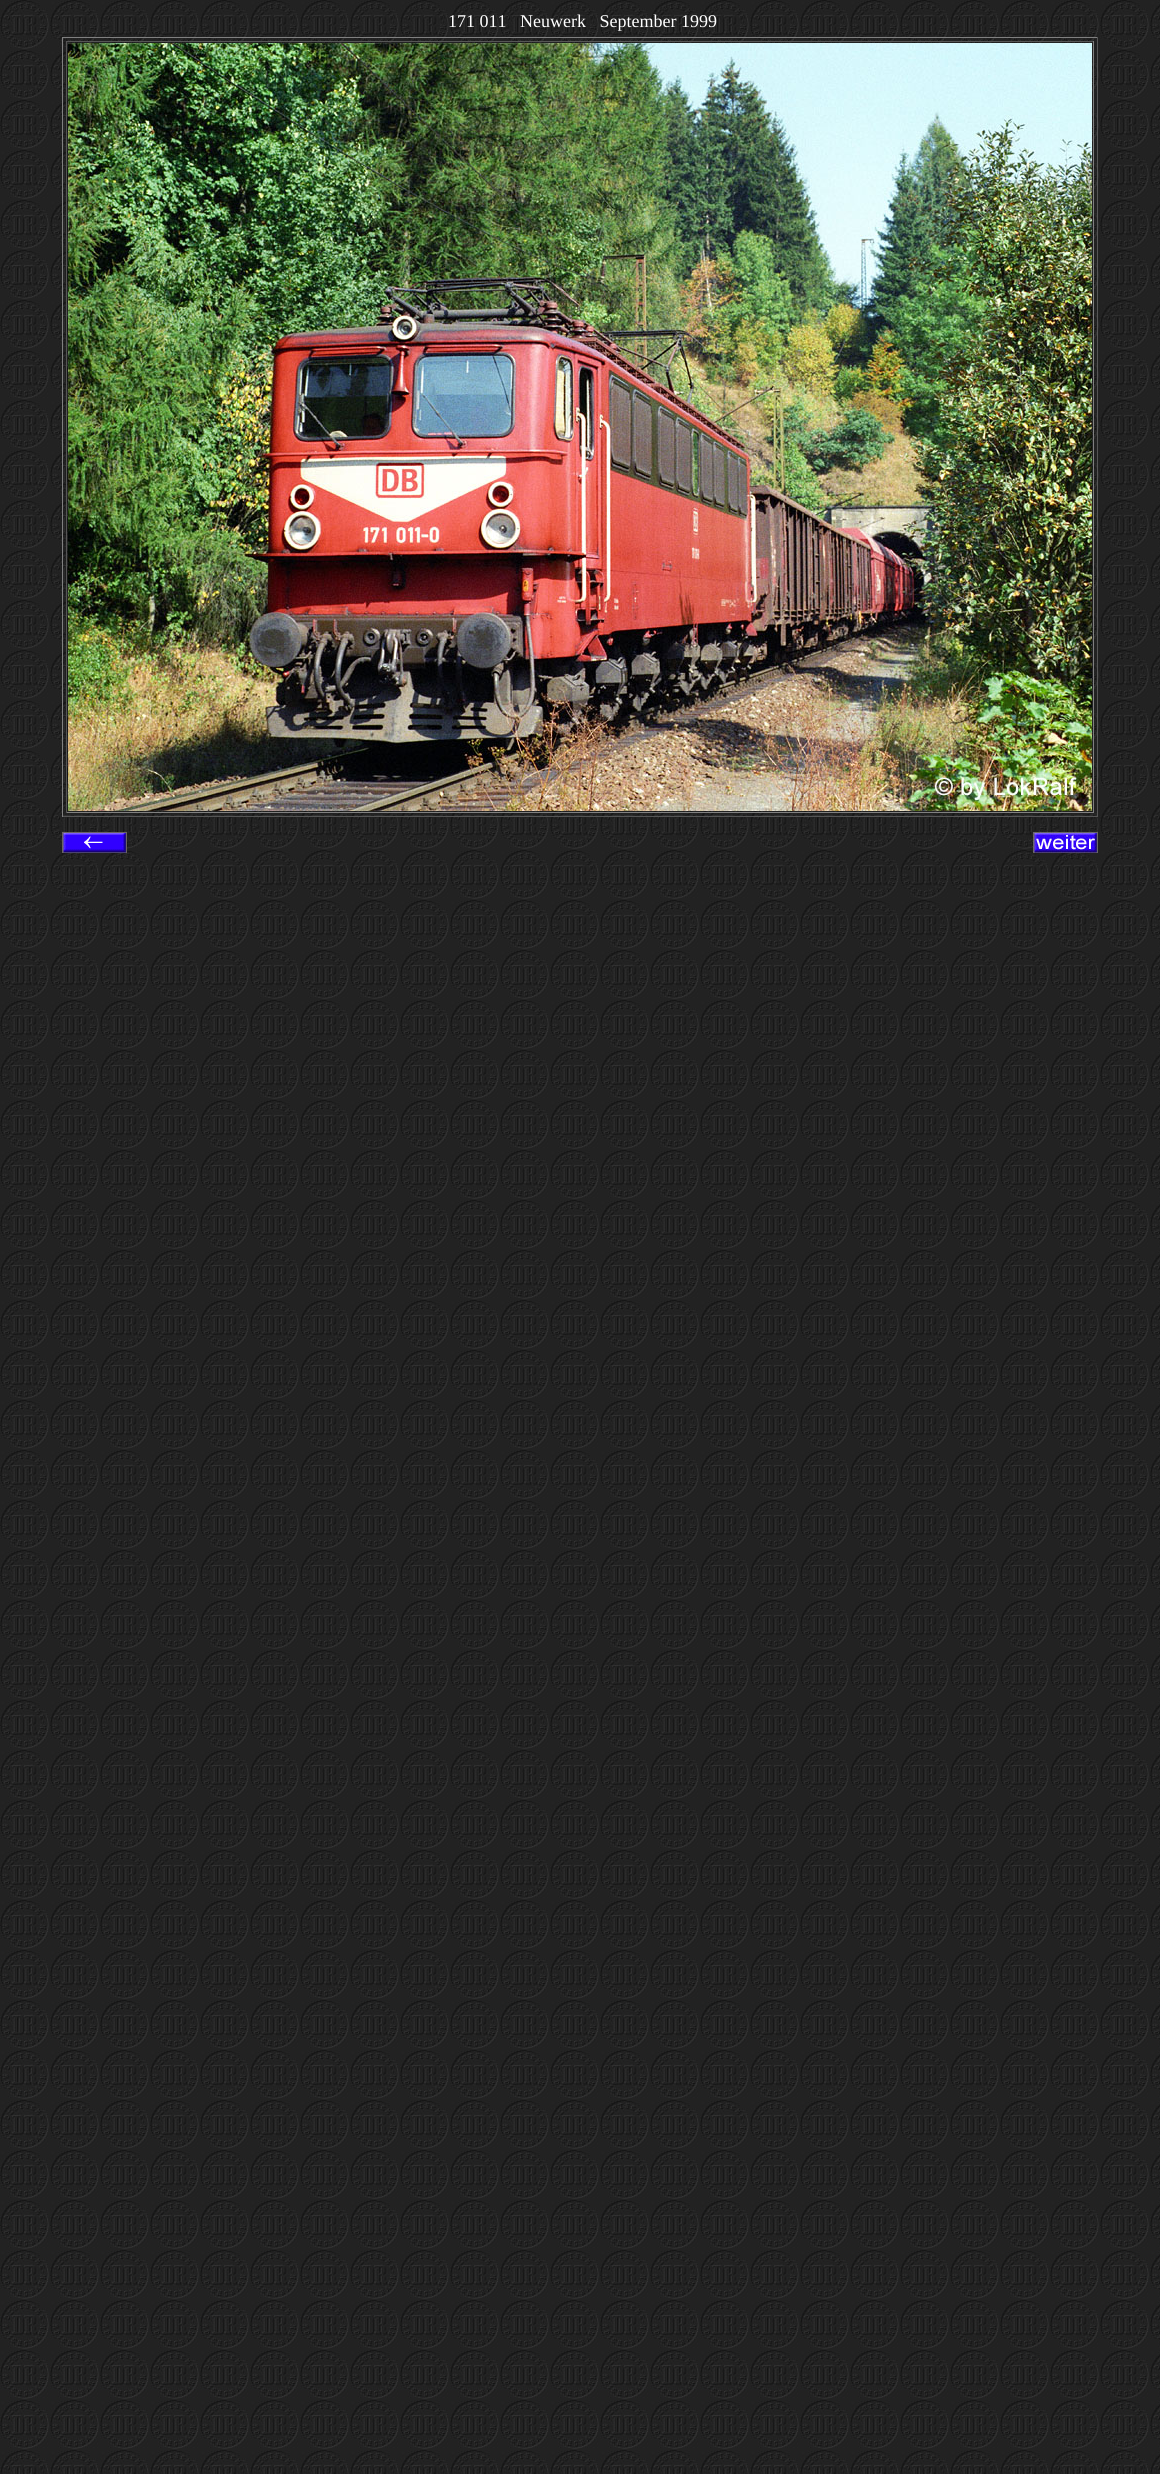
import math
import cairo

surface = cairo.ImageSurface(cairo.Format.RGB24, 1160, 2474)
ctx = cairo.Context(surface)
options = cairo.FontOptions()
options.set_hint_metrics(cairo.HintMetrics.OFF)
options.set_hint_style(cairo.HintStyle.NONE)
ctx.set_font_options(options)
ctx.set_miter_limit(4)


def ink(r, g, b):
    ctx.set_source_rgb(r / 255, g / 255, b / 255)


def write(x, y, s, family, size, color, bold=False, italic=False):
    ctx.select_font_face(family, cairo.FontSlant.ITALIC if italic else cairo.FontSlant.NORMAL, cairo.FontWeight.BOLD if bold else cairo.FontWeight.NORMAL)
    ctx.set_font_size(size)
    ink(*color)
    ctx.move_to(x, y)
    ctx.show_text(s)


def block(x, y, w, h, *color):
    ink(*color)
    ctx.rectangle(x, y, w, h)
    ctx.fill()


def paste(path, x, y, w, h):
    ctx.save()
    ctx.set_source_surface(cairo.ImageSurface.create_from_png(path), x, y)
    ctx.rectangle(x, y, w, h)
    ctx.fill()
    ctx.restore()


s1 = dict(family="Liberation Serif", size=18, color=(255, 255, 255))

ink(255, 255, 255)
ctx.paint()
paste("pic1.png", 0, 0, 1160, 2474)
write(448, 27, "171 011   Neuwerk   September 1999", **s1)
block(62, 37, 1036, 1, 128, 128, 128)
block(1097, 37, 1, 780, 85, 85, 85)
block(62, 816, 1036, 1, 85, 85, 85)
block(62, 37, 1, 780, 128, 128, 128)
block(66, 41, 1028, 1, 85, 85, 85)
block(1093, 41, 1, 772, 128, 128, 128)
block(66, 812, 1028, 1, 128, 128, 128)
block(66, 41, 1, 772, 85, 85, 85)
paste("pic2.png", 68, 43, 1024, 768)
paste("pic3.png", 62, 832, 65, 21)
paste("pic4.png", 1033, 832, 65, 21)
surface.write_to_png("screenshot.png")
